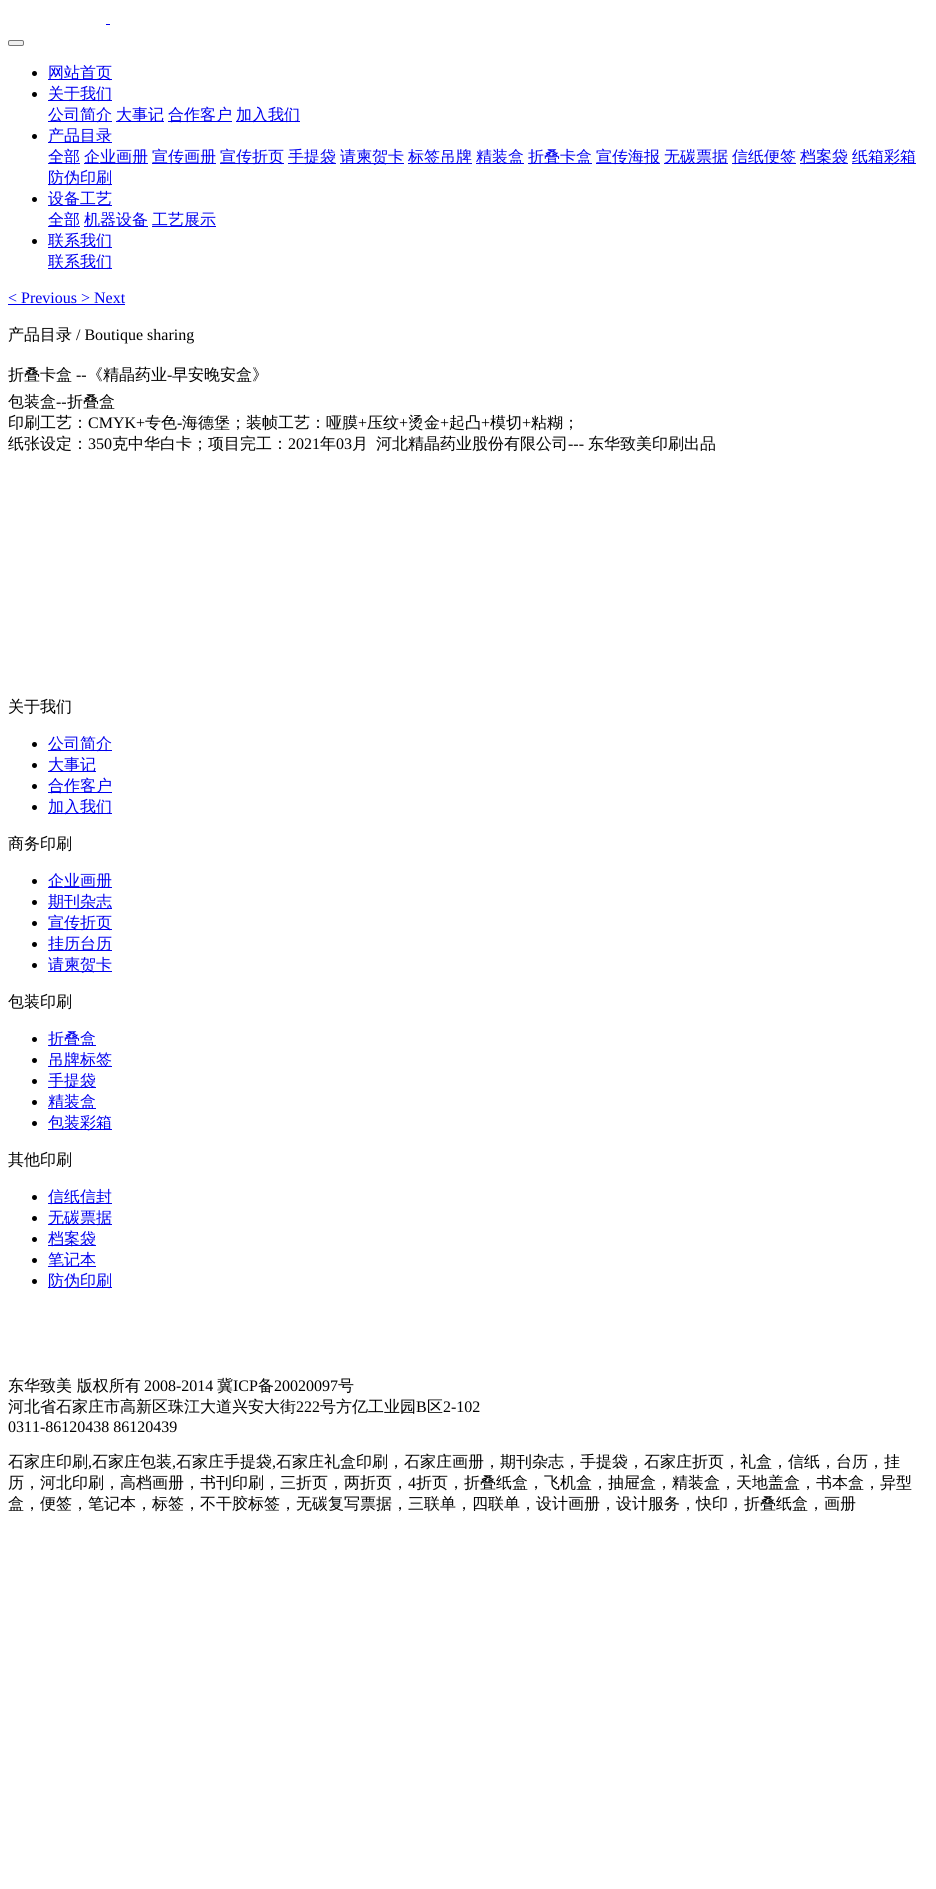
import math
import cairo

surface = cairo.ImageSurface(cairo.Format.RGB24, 936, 1889)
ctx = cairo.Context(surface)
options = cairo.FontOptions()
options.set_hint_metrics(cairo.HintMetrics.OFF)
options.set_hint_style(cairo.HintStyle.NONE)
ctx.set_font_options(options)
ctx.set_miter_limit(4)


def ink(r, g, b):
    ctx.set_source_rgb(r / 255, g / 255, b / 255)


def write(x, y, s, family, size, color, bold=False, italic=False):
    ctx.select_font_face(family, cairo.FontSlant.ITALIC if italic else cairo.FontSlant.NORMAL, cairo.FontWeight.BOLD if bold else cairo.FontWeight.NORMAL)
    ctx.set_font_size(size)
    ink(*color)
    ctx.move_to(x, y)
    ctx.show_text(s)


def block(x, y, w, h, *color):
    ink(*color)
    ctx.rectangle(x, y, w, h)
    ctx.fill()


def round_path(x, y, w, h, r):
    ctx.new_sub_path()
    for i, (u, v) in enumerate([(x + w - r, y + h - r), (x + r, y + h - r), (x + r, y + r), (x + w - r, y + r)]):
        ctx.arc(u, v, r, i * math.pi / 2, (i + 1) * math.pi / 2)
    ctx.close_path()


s1 = dict(family="WenQuanYi Zen Hei Medium", size=16, color=(0, 0, 238))
s2 = dict(family="Liberation Serif", size=16, color=(0, 0, 238))
s3 = dict(family="WenQuanYi Zen Hei Medium", size=16, color=(0, 0, 0))
s4 = dict(family="Liberation Serif", size=16, color=(0, 0, 0))

ink(255, 255, 255)
ctx.paint()
block(106, 24, 4, 1, 0, 0, 238)
ink(239, 239, 239)
round_path(8.5, 40.5, 15, 5, 1.5)
ctx.fill_preserve()
ink(118, 118, 118)
ctx.set_line_width(1)
ctx.stroke()
ink(0, 0, 0)
ctx.arc(34.5, 73.5, 2.5, 0, 2 * math.pi)
ctx.fill()
block(48, 79, 64, 1, 0, 0, 238)
write(48, 78, "网站首页", **s1)
ink(0, 0, 0)
ctx.new_path()
ctx.arc(34.5, 94.5, 2.5, 0, 2 * math.pi)
ctx.fill()
block(48, 100, 64, 1, 0, 0, 238)
write(48, 99, "关于我们", **s1)
block(48, 121, 64, 1, 0, 0, 238)
write(48, 120, "公司简介", **s1)
block(116, 121, 48, 1, 0, 0, 238)
write(116, 120, "大事记", **s1)
block(168, 121, 64, 1, 0, 0, 238)
write(168, 120, "合作客户", **s1)
block(236, 121, 64, 1, 0, 0, 238)
write(236, 120, "加入我们", **s1)
ink(0, 0, 0)
ctx.new_path()
ctx.arc(34.5, 136.5, 2.5, 0, 2 * math.pi)
ctx.fill()
block(48, 142, 64, 1, 0, 0, 238)
write(48, 141, "产品目录", **s1)
block(48, 163, 32, 1, 0, 0, 238)
write(48, 162, "全部", **s1)
block(84, 163, 64, 1, 0, 0, 238)
write(84, 162, "企业画册", **s1)
block(152, 163, 64, 1, 0, 0, 238)
write(152, 162, "宣传画册", **s1)
block(220, 163, 64, 1, 0, 0, 238)
write(220, 162, "宣传折页", **s1)
block(288, 163, 48, 1, 0, 0, 238)
write(288, 162, "手提袋", **s1)
block(340, 163, 64, 1, 0, 0, 238)
write(340, 162, "请柬贺卡", **s1)
block(408, 163, 64, 1, 0, 0, 238)
write(408, 162, "标签吊牌", **s1)
block(476, 163, 48, 1, 0, 0, 238)
write(476, 162, "精装盒", **s1)
block(528, 163, 64, 1, 0, 0, 238)
write(528, 162, "折叠卡盒", **s1)
block(596, 163, 64, 1, 0, 0, 238)
write(596, 162, "宣传海报", **s1)
block(664, 163, 64, 1, 0, 0, 238)
write(664, 162, "无碳票据", **s1)
block(732, 163, 64, 1, 0, 0, 238)
write(732, 162, "信纸便签", **s1)
block(800, 163, 48, 1, 0, 0, 238)
write(800, 162, "档案袋", **s1)
block(852, 163, 64, 1, 0, 0, 238)
write(852, 162, "纸箱彩箱", **s1)
block(48, 184, 64, 1, 0, 0, 238)
write(48, 183, "防伪印刷", **s1)
ink(0, 0, 0)
ctx.new_path()
ctx.arc(34.5, 199.5, 2.5, 0, 2 * math.pi)
ctx.fill()
block(48, 205, 64, 1, 0, 0, 238)
write(48, 204, "设备工艺", **s1)
block(48, 226, 32, 1, 0, 0, 238)
write(48, 225, "全部", **s1)
block(84, 226, 64, 1, 0, 0, 238)
write(84, 225, "机器设备", **s1)
block(152, 226, 64, 1, 0, 0, 238)
write(152, 225, "工艺展示", **s1)
ink(0, 0, 0)
ctx.new_path()
ctx.arc(34.5, 241.5, 2.5, 0, 2 * math.pi)
ctx.fill()
block(48, 247, 64, 1, 0, 0, 238)
write(48, 246, "联系我们", **s1)
block(48, 268, 64, 1, 0, 0, 238)
write(48, 267, "联系我们", **s1)
write(8, 303, "< Previous > Next", **s2)
block(8, 304, 117, 1, 0, 0, 238)
write(8, 340, "产品目录", **s3)
write(76, 340, "/ Boutique sharing", **s4)
write(8, 380, "折叠卡盒", **s3)
write(76, 380, "--", **s4)
write(87, 380, "《精晶药业", **s3)
write(167, 380, "-", **s4)
write(172, 380, "早安晚安盒》", **s3)
write(8, 407, "包装盒", **s3)
write(56, 407, "--", **s4)
write(67, 407, "折叠盒", **s3)
write(8, 428, "印刷工艺：", **s3)
write(88, 428, "CMYK+", **s4)
write(145, 428, "专色", **s3)
write(177, 428, "-", **s4)
write(182, 428, "海德堡；装帧工艺：哑膜", **s3)
write(358, 428, "+", **s4)
write(367, 428, "压纹", **s3)
write(399, 428, "+", **s4)
write(408, 428, "烫金", **s3)
write(440, 428, "+", **s4)
write(449, 428, "起凸", **s3)
write(481, 428, "+", **s4)
write(490, 428, "模切", **s3)
write(522, 428, "+", **s4)
write(531, 428, "粘糊；", **s3)
write(8, 449, "纸张设定：", **s3)
write(88, 449, "350", **s4)
write(112, 449, "克中华白卡；项目完工：", **s3)
write(288, 449, "2021", **s4)
write(320, 449, "年", **s3)
write(336, 449, "03", **s4)
write(352, 449, "月", **s3)
write(376, 449, "河北精晶药业股份有限公司", **s3)
write(568, 449, "---", **s4)
write(588, 449, "东华致美印刷出品", **s3)
write(8, 712, "关于我们", **s3)
ctx.new_path()
ctx.arc(34.5, 744.5, 2.5, 0, 2 * math.pi)
ctx.fill()
block(48, 750, 64, 1, 0, 0, 238)
write(48, 749, "公司简介", **s1)
ink(0, 0, 0)
ctx.new_path()
ctx.arc(34.5, 765.5, 2.5, 0, 2 * math.pi)
ctx.fill()
block(48, 771, 48, 1, 0, 0, 238)
write(48, 770, "大事记", **s1)
ink(0, 0, 0)
ctx.new_path()
ctx.arc(34.5, 786.5, 2.5, 0, 2 * math.pi)
ctx.fill()
block(48, 792, 64, 1, 0, 0, 238)
write(48, 791, "合作客户", **s1)
ink(0, 0, 0)
ctx.new_path()
ctx.arc(34.5, 807.5, 2.5, 0, 2 * math.pi)
ctx.fill()
block(48, 813, 64, 1, 0, 0, 238)
write(48, 812, "加入我们", **s1)
write(8, 849, "商务印刷", **s3)
ctx.new_path()
ctx.arc(34.5, 881.5, 2.5, 0, 2 * math.pi)
ctx.fill()
block(48, 887, 64, 1, 0, 0, 238)
write(48, 886, "企业画册", **s1)
ink(0, 0, 0)
ctx.new_path()
ctx.arc(34.5, 902.5, 2.5, 0, 2 * math.pi)
ctx.fill()
block(48, 908, 64, 1, 0, 0, 238)
write(48, 907, "期刊杂志", **s1)
ink(0, 0, 0)
ctx.new_path()
ctx.arc(34.5, 923.5, 2.5, 0, 2 * math.pi)
ctx.fill()
block(48, 929, 64, 1, 0, 0, 238)
write(48, 928, "宣传折页", **s1)
ink(0, 0, 0)
ctx.new_path()
ctx.arc(34.5, 944.5, 2.5, 0, 2 * math.pi)
ctx.fill()
block(48, 950, 64, 1, 0, 0, 238)
write(48, 949, "挂历台历", **s1)
ink(0, 0, 0)
ctx.new_path()
ctx.arc(34.5, 965.5, 2.5, 0, 2 * math.pi)
ctx.fill()
block(48, 971, 64, 1, 0, 0, 238)
write(48, 970, "请柬贺卡", **s1)
write(8, 1007, "包装印刷", **s3)
ctx.new_path()
ctx.arc(34.5, 1039.5, 2.5, 0, 2 * math.pi)
ctx.fill()
block(48, 1045, 48, 1, 0, 0, 238)
write(48, 1044, "折叠盒", **s1)
ink(0, 0, 0)
ctx.new_path()
ctx.arc(34.5, 1060.5, 2.5, 0, 2 * math.pi)
ctx.fill()
block(48, 1066, 64, 1, 0, 0, 238)
write(48, 1065, "吊牌标签", **s1)
ink(0, 0, 0)
ctx.new_path()
ctx.arc(34.5, 1081.5, 2.5, 0, 2 * math.pi)
ctx.fill()
block(48, 1087, 48, 1, 0, 0, 238)
write(48, 1086, "手提袋", **s1)
ink(0, 0, 0)
ctx.new_path()
ctx.arc(34.5, 1102.5, 2.5, 0, 2 * math.pi)
ctx.fill()
block(48, 1108, 48, 1, 0, 0, 238)
write(48, 1107, "精装盒", **s1)
ink(0, 0, 0)
ctx.new_path()
ctx.arc(34.5, 1123.5, 2.5, 0, 2 * math.pi)
ctx.fill()
block(48, 1129, 64, 1, 0, 0, 238)
write(48, 1128, "包装彩箱", **s1)
write(8, 1165, "其他印刷", **s3)
ctx.new_path()
ctx.arc(34.5, 1197.5, 2.5, 0, 2 * math.pi)
ctx.fill()
block(48, 1203, 64, 1, 0, 0, 238)
write(48, 1202, "信纸信封", **s1)
ink(0, 0, 0)
ctx.new_path()
ctx.arc(34.5, 1218.5, 2.5, 0, 2 * math.pi)
ctx.fill()
block(48, 1224, 64, 1, 0, 0, 238)
write(48, 1223, "无碳票据", **s1)
ink(0, 0, 0)
ctx.new_path()
ctx.arc(34.5, 1239.5, 2.5, 0, 2 * math.pi)
ctx.fill()
block(48, 1245, 48, 1, 0, 0, 238)
write(48, 1244, "档案袋", **s1)
ink(0, 0, 0)
ctx.new_path()
ctx.arc(34.5, 1260.5, 2.5, 0, 2 * math.pi)
ctx.fill()
block(48, 1266, 48, 1, 0, 0, 238)
write(48, 1265, "笔记本", **s1)
ink(0, 0, 0)
ctx.new_path()
ctx.arc(34.5, 1281.5, 2.5, 0, 2 * math.pi)
ctx.fill()
block(48, 1287, 64, 1, 0, 0, 238)
write(48, 1286, "防伪印刷", **s1)
write(8, 1391, "东华致美 版权所有", **s3)
write(144, 1391, "2008-2014", **s4)
write(217, 1391, "冀", **s3)
write(233, 1391, "ICP", **s4)
write(258, 1391, "备", **s3)
write(274, 1391, "20020097", **s4)
write(338, 1391, "号", **s3)
write(8, 1412, "河北省石家庄市高新区珠江大道兴安大街", **s3)
write(296, 1412, "222", **s4)
write(320, 1412, "号方亿工业园", **s3)
write(416, 1412, "B", **s4)
write(427, 1412, "区", **s3)
write(443, 1412, "2-102", **s4)
write(8, 1432, "0311-86120438 86120439", **s4)
write(8, 1467, "石家庄印刷", **s3)
write(88, 1467, ",", **s4)
write(92, 1467, "石家庄包装", **s3)
write(172, 1467, ",", **s4)
write(176, 1467, "石家庄手提袋", **s3)
write(272, 1467, ",", **s4)
write(276, 1467, "石家庄礼盒印刷，石家庄画册，期刊杂志，手提袋，石家庄折页，礼盒，信纸，台历，挂", **s3)
write(8, 1488, "历，河北印刷，高档画册，书刊印刷，三折页，两折页，", **s3)
write(408, 1488, "4", **s4)
write(416, 1488, "折页，折叠纸盒，飞机盒，抽屉盒，精装盒，天地盖盒，书本盒，异型", **s3)
write(8, 1509, "盒，便签，笔记本，标签，不干胶标签，无碳复写票据，三联单，四联单，设计画册，设计服务，快印，折叠纸盒，画册", **s3)
surface.write_to_png("screenshot.png")
